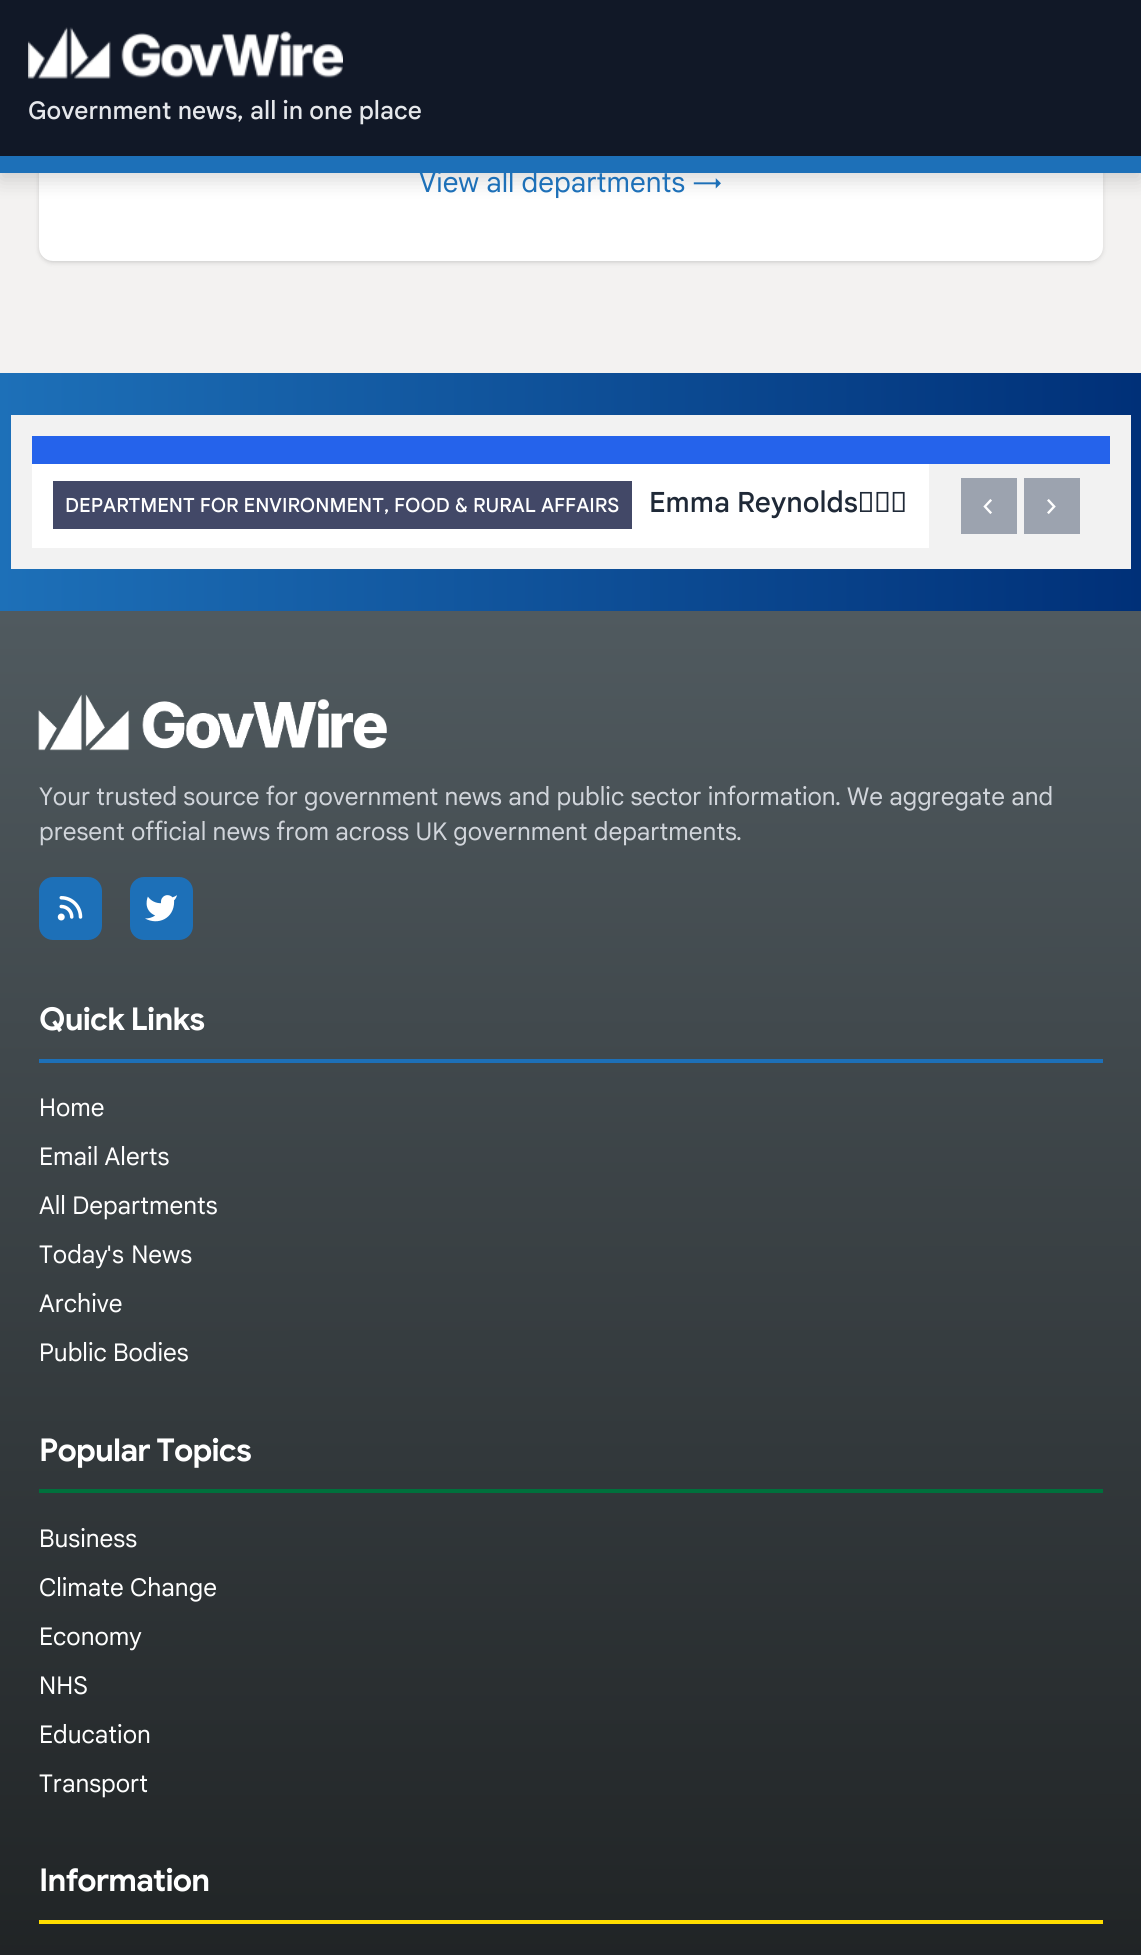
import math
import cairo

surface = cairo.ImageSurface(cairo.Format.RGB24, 1141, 1955)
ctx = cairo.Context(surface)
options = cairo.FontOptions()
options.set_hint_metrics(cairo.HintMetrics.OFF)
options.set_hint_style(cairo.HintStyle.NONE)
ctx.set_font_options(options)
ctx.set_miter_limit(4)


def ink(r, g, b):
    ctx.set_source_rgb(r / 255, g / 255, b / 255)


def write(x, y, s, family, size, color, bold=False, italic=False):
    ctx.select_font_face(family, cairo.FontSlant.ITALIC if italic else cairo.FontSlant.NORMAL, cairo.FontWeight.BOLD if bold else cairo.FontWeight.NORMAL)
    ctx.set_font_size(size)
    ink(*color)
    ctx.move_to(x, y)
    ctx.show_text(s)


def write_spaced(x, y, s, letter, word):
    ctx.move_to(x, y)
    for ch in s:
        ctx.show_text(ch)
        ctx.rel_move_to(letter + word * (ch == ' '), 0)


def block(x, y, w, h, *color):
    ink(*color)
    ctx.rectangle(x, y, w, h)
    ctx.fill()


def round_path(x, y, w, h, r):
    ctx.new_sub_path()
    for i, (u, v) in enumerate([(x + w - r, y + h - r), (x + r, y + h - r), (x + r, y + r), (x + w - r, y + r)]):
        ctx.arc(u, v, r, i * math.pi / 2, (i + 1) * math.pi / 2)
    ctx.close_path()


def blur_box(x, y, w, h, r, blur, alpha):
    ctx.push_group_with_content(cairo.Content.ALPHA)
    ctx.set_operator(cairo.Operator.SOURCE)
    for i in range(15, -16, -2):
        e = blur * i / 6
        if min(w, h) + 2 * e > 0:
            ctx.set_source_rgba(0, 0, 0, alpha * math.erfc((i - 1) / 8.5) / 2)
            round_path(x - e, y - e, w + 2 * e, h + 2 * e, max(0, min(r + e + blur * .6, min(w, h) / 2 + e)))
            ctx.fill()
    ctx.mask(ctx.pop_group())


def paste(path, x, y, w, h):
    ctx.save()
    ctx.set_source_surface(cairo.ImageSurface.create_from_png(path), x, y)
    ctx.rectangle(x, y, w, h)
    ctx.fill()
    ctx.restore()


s1 = dict(family="Google Sans Medium", size=24.5, color=(229, 231, 235))
s2 = dict(family="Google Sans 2 Medium", size=24.5, color=(229, 231, 235))
s3 = dict(family="Google Sans", size=28, color=(29, 112, 184))
s4 = dict(family="Google Sans Medium", size=19.6, color=(255, 255, 255))
s5 = dict(family="Google Sans 2 Medium", size=19.6, color=(255, 255, 255))
s6 = dict(family="Google Sans Medium", size=28, color=(31, 41, 55))
s7 = dict(family="Google Sans 2", size=35, color=(255, 255, 255))
s8 = dict(family="Google Sans", size=24.5, color=(209, 213, 219))
s9 = dict(family="Google Sans 2", size=24.5, color=(209, 213, 219))
s10 = dict(family="Google Sans", size=24.5, color=(255, 255, 255))
s11 = dict(family="Google Sans 2", size=24.5, color=(255, 255, 255))

ink(243, 242, 241)
ctx.paint()
ink(0, 0, 0)
blur_box(40, -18, 1061, 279, 12, 2, 0.1)
blur_box(39, -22, 1064, 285, 14, 2.5, 0.1)
ink(255, 255, 255)
round_path(39, -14, 1064, 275, 14)
ctx.fill()
ink(0, 0, 0)
blur_box(0, 7, 1141, 173, 0, 10.5, 0.15)
block(0, 0, 1141, 156, 17, 24, 39)
block(0, 156, 1141, 17, 29, 112, 184)
paste("pic1.png", 28, 27, 315, 52)
write(28, 119, "Government news", **s1)
write(237, 119, ",", **s2)
write(250, 119, "all in one place", **s1)
write(419, 192, "View all departments →", **s3)
gradient = cairo.LinearGradient(0, 492, 1141, 492)
gradient.add_color_stop_rgba(0, 0.114, 0.439, 0.722, 1)
gradient.add_color_stop_rgba(1, 0, 0.188, 0.471, 1)
ctx.set_source(gradient)
ctx.rectangle(0, 373, 1141, 238)
ctx.fill()
block(11, 415, 1120, 154, 242, 242, 242)
block(32, 436, 1078, 28, 37, 99, 235)
block(32, 464, 897, 84, 255, 255, 255)
block(53, 481, 579, 48, 66, 72, 103)
write(65, 512, "DEPARTMENT FOR ENVIRONMENT", **s4)
write(384, 512, ",", **s5)
write(394, 512, "FOOD", **s4)
write(455, 512, "&", **s5)
write(473, 512, "RURAL AFFAIRS", **s4)
write(649, 512, "Emma Reynolds...", **s6)
block(961, 478, 56, 56, 156, 163, 175)
write(982, 516, "‹", **s7)
block(1024, 478, 56, 56, 156, 163, 175)
write(1045, 516, "›", **s7)
gradient = cairo.LinearGradient(570, 611, 571, 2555)
gradient.add_color_stop_rgba(0, 0.314, 0.353, 0.373, 1)
gradient.add_color_stop_rgba(1, 0.043, 0.047, 0.047, 1)
ctx.set_source(gradient)
ctx.rectangle(0, 611, 1141, 1344)
ctx.fill()
paste("pic2.png", 38, 694, 349, 57)
write(39, 805, "Your trusted source for government news and public sector information", **s8)
write(835, 805, ".", **s9)
write(847, 805, "We aggregate and", **s8)
write(39, 840, "present official news from across UK government departments", **s8)
write(736, 840, ".", **s9)
ink(29, 112, 184)
round_path(39, 877, 63, 63, 14)
ctx.fill()
paste("pic3.png", 57, 896, 26, 25)
round_path(130, 877, 63, 63, 14)
ctx.fill()
paste("pic4.png", 145, 895, 32, 27)
block(39, 1059, 1064, 4, 29, 112, 184)
ctx.select_font_face("Google Sans", cairo.FontSlant.NORMAL, cairo.FontWeight.BOLD)
ctx.set_font_size(31.5)
ink(255, 255, 255)
write_spaced(39, 1030, "Quick Links", -0.75, 0)
write(39, 1116, "Home", **s10)
write(39, 1165, "Email Alerts", **s10)
write(39, 1214, "All Departments", **s10)
write(39, 1263, "Today", **s10)
write(107, 1263, "'", **s11)
ctx.select_font_face("Google Sans")
write_spaced(112, 1263, "s News", 0, 1)
write(39, 1312, "Archive", **s10)
write(39, 1361, "Public Bodies", **s10)
block(39, 1489, 1064, 4, 0, 112, 60)
ctx.select_font_face("Google Sans", cairo.FontSlant.NORMAL, cairo.FontWeight.BOLD)
ctx.set_font_size(31.5)
ink(255, 255, 255)
write_spaced(39, 1461, "Popular Topics", -0.75, 0)
write(39, 1547, "Business", **s10)
write(39, 1596, "Climate Change", **s10)
write(39, 1645, "Economy", **s10)
write(39, 1694, "NHS", **s10)
write(39, 1743, "Education", **s10)
write(39, 1792, "Transport", **s10)
block(39, 1920, 1064, 4, 255, 221, 0)
ctx.select_font_face("Google Sans", cairo.FontSlant.NORMAL, cairo.FontWeight.BOLD)
ctx.set_font_size(31.5)
ink(255, 255, 255)
write_spaced(39, 1891, "Information", -0.75, 0)
surface.write_to_png("screenshot.png")
